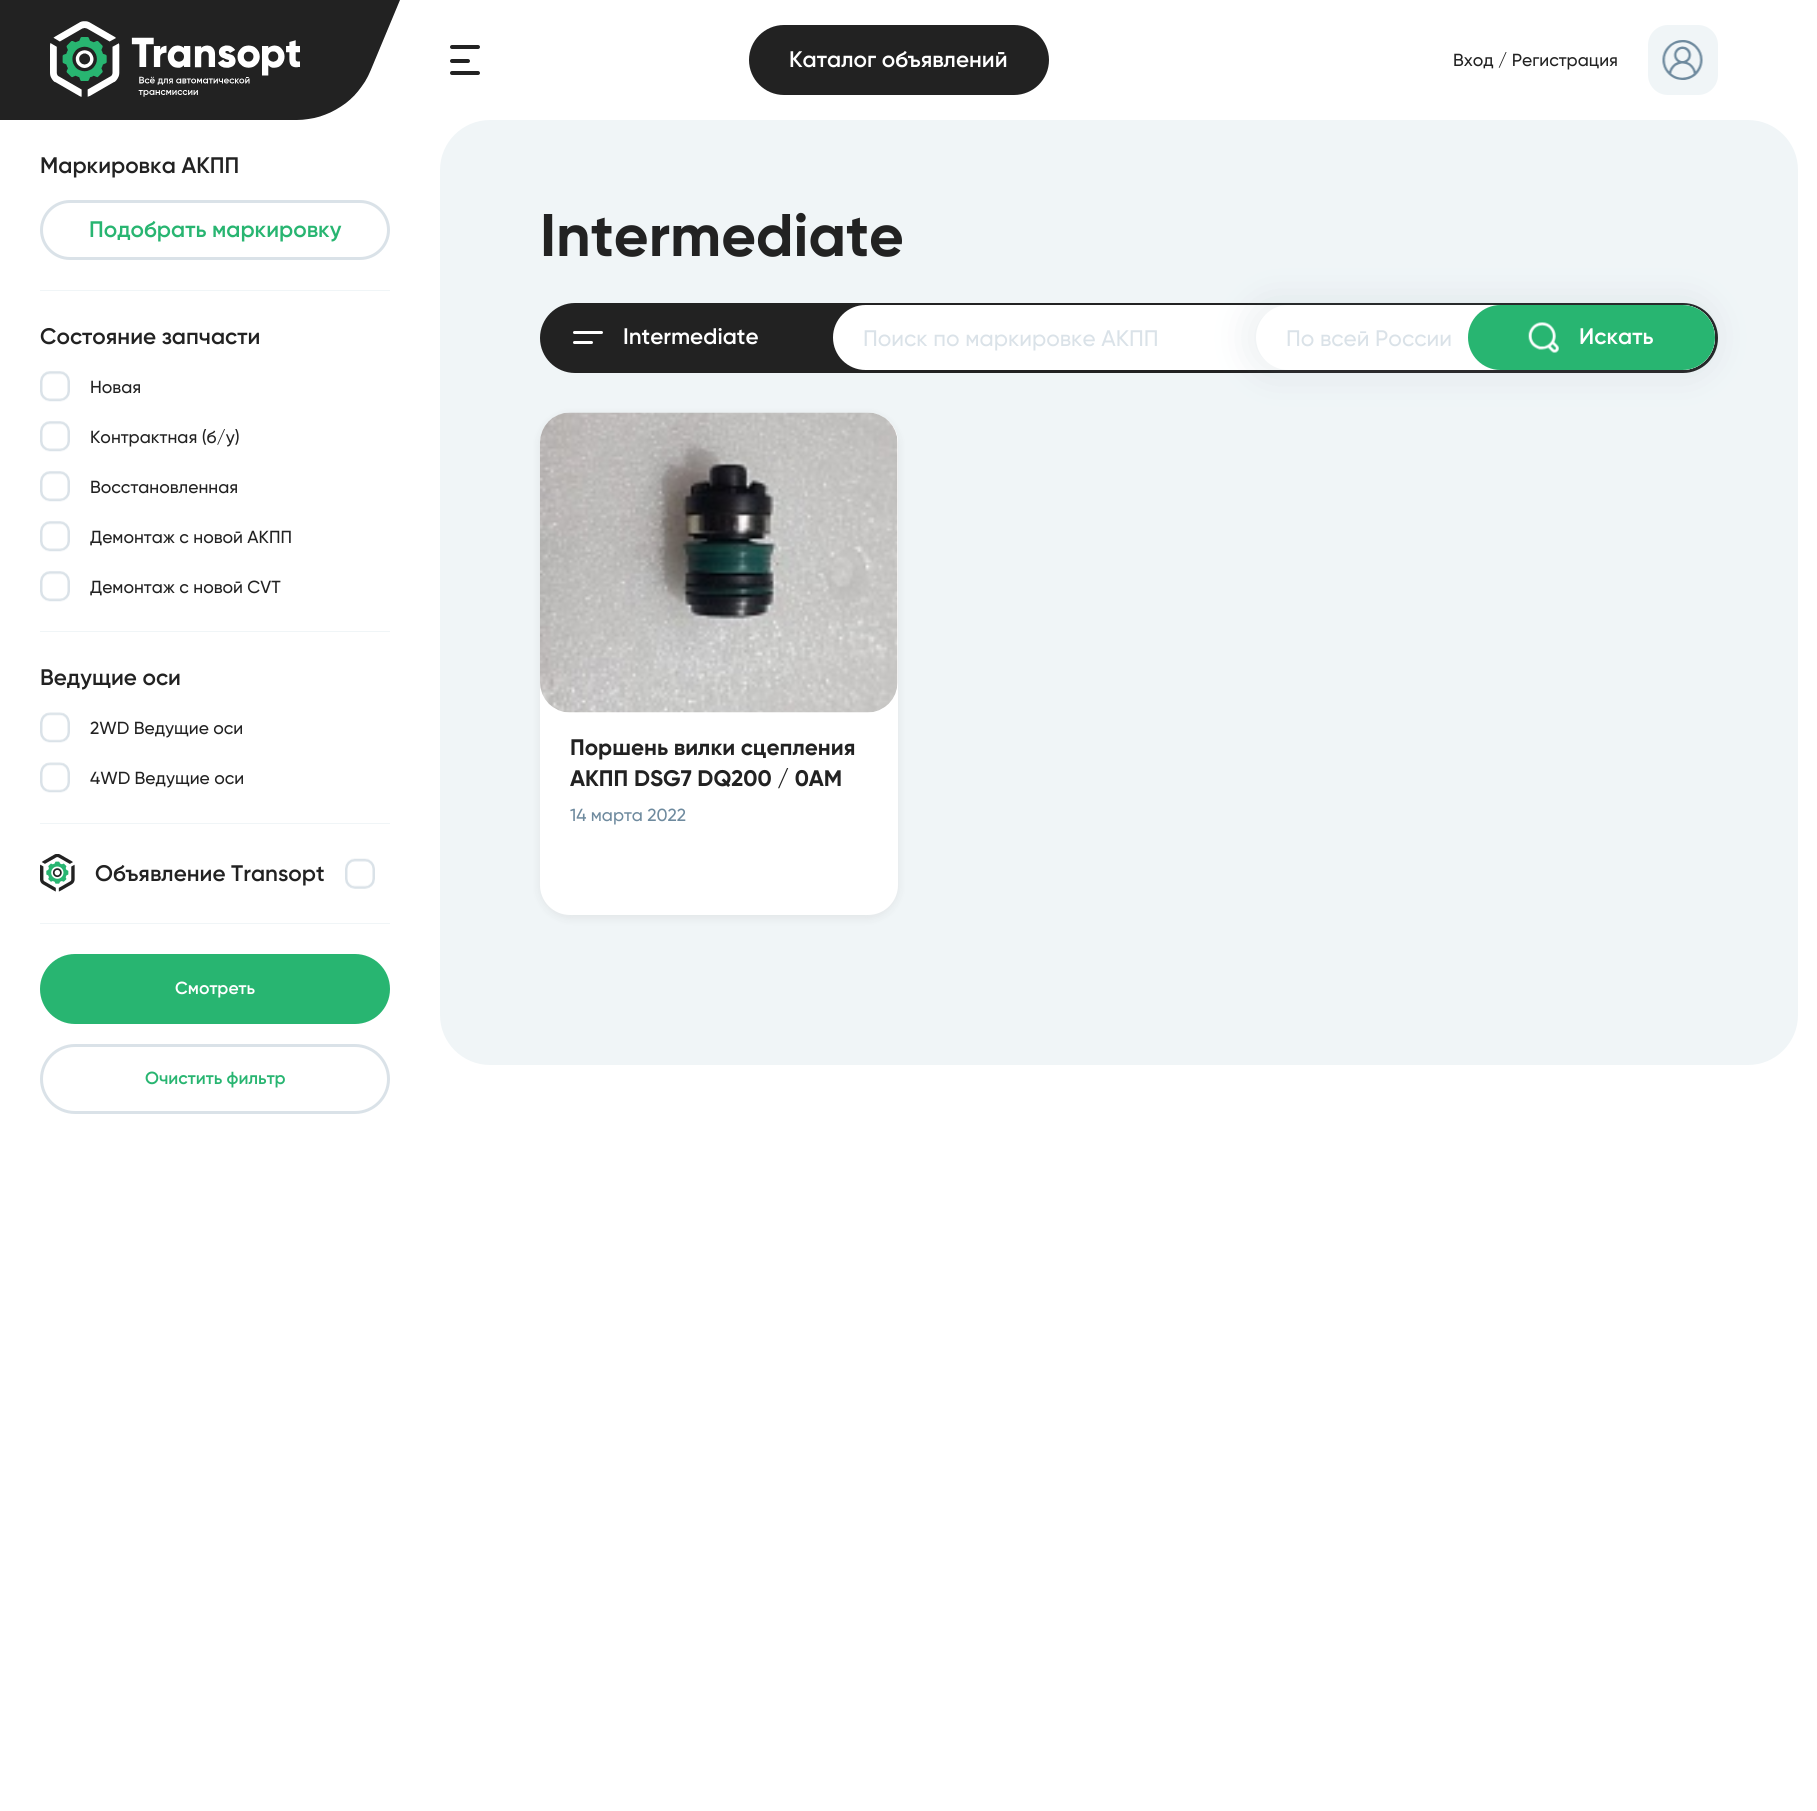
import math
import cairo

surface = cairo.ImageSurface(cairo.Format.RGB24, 1817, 1811)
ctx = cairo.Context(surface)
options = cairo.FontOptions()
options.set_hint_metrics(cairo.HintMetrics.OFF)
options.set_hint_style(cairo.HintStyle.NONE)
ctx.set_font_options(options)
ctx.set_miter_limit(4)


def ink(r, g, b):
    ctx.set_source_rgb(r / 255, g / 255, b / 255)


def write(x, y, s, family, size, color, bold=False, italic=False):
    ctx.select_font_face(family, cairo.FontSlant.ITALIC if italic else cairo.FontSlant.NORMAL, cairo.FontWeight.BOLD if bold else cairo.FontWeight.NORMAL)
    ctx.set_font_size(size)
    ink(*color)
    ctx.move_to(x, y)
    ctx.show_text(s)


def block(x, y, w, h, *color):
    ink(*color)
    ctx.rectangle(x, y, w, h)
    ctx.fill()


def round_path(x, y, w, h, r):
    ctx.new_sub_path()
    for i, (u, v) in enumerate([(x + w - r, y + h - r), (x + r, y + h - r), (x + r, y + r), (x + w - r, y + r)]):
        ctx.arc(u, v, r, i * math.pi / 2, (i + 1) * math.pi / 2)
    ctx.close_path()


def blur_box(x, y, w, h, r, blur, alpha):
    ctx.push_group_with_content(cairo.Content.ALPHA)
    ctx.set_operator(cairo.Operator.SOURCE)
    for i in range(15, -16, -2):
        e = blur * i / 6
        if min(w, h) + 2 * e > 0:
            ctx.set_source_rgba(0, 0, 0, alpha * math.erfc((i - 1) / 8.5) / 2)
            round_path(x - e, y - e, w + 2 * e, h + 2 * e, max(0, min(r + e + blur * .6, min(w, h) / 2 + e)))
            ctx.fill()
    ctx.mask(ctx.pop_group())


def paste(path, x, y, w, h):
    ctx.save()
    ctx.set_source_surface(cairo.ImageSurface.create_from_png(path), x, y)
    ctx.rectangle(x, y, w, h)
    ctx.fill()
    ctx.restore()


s1 = dict(family="Gilroy SemiBold", size=22.5, color=(255, 255, 255))
s2 = dict(family="Gilroy Medium", size=17.5, color=(34, 34, 34))
s3 = dict(family="Gilroy SemiBold", size=22.5, color=(34, 34, 34))
s4 = dict(family="Gilroy SemiBold", size=22.5, color=(40, 181, 113))
s5 = dict(family="Gilroy SemiBold", size=17.5, color=(255, 255, 255))
s6 = dict(family="Gilroy SemiBold", size=17.5, color=(40, 181, 113))
s7 = dict(family="Gilroy", size=60, color=(34, 34, 34), bold=True)
s8 = dict(family="Gilroy Medium", size=22.5, color=(218, 226, 232))
s9 = dict(family="Gilroy", size=22.5, color=(34, 34, 34), bold=True)
s10 = dict(family="Gilroy Medium", size=17.5, color=(110, 138, 158))

ink(255, 255, 255)
ctx.paint()
paste("pic1.png", 0, 0, 400, 120)
ink(34, 34, 34)
round_path(450, 45, 30, 4, 2)
ctx.fill()
round_path(450, 59, 20, 4, 2)
ctx.fill()
round_path(450, 71, 30, 4, 2)
ctx.fill()
round_path(749, 25, 300, 70, 35)
ctx.fill()
write(789, 67, "Каталог объявлений", **s1)
write(1453, 66, "Вход / Регистрация", **s2)
ink(240, 245, 247)
round_path(1648, 25, 70, 70, 20)
ctx.fill()
paste("pic2.png", 1662, 40, 41, 40)
block(40, 290, 350, 1, 240, 245, 247)
write(40, 173, "Маркировка АКПП", **s3)
round_path(41.5, 201.5, 347, 57, 28.5)
ink(218, 226, 232)
ctx.set_line_width(3)
ctx.stroke()
write(89, 237, "Подобрать маркировку", **s4)
block(40, 631, 350, 1, 240, 245, 247)
write(40, 344, "Состояние запчасти", **s3)
paste("pic3.png", 40, 371, 30, 31)
write(90, 393, "Новая", **s2)
paste("pic4.png", 40, 421, 30, 31)
write(90, 443, "Контрактная (б/у)", **s2)
paste("pic4.png", 40, 471, 30, 31)
write(90, 493, "Восстановленная", **s2)
paste("pic4.png", 40, 521, 30, 31)
write(90, 543, "Демонтаж с новой АКПП", **s2)
paste("pic4.png", 40, 571, 30, 31)
write(90, 593, "Демонтаж с новой CVT", **s2)
block(40, 823, 350, 1, 240, 245, 247)
write(40, 685, "Ведущие оси", **s3)
paste("pic5.png", 40, 712, 30, 31)
write(90, 734, "2WD Ведущие оси", **s2)
paste("pic5.png", 40, 762, 30, 31)
write(90, 784, "4WD Ведущие оси", **s2)
block(40, 923, 350, 1, 240, 245, 247)
paste("pic6.png", 40, 854, 35, 38)
write(95, 881, "Объявление Transopt", **s3)
paste("pic7.png", 345, 858, 30, 31)
ink(40, 181, 113)
round_path(40, 954, 350, 70, 35)
ctx.fill()
write(175, 994, "Смотреть", **s5)
round_path(41.5, 1045.5, 347, 67, 33.5)
ink(218, 226, 232)
ctx.stroke()
write(145, 1084, "Очистить фильтр", **s6)
ink(240, 245, 247)
round_path(440, 120, 1358, 945, 50)
ctx.fill()
write(540, 256, "Intermediate", **s7)
round_path(541.5, 304.5, 1175, 67, 33.5)
ctx.fill_preserve()
ctx.stroke()
ink(255, 255, 255)
round_path(573, 331, 30, 3, 1.5)
ctx.fill()
round_path(573, 341, 20, 3, 1.5)
ctx.fill()
write(623, 344, "Intermediate", **s1)
round_path(833, 305, 882, 65, 32.5)
ctx.fill()
write(863, 346, "Поиск по маркировке АКПП", **s8)
ink(110, 138, 158)
blur_box(1251, 305, 459, 65, 32.5, 20, 0.16)
ink(255, 255, 255)
round_path(1256, 305, 459, 65, 32.5)
ctx.fill()
write(1286, 346, "По всей России", **s8)
ink(40, 181, 113)
round_path(1468, 305, 247, 65, 32.5)
ctx.fill()
paste("pic8.png", 1528, 322, 31, 31)
write(1579, 344, "Искать", **s1)
ink(34, 34, 34)
blur_box(540, 415, 358, 503, 30, 5, 0.08)
ink(255, 255, 255)
round_path(540, 413, 358, 502, 30)
ctx.fill()
round_path(540, 413, 358, 300, 30)
ctx.fill()
paste("pic9.png", 540, 412, 358, 301)
write(570, 755, "Поршень вилки сцепления", **s9)
write(570, 786, "АКПП DSG7 DQ200 / 0AM", **s9)
write(570, 821, "14 марта 2022", **s10)
surface.write_to_png("screenshot.png")
